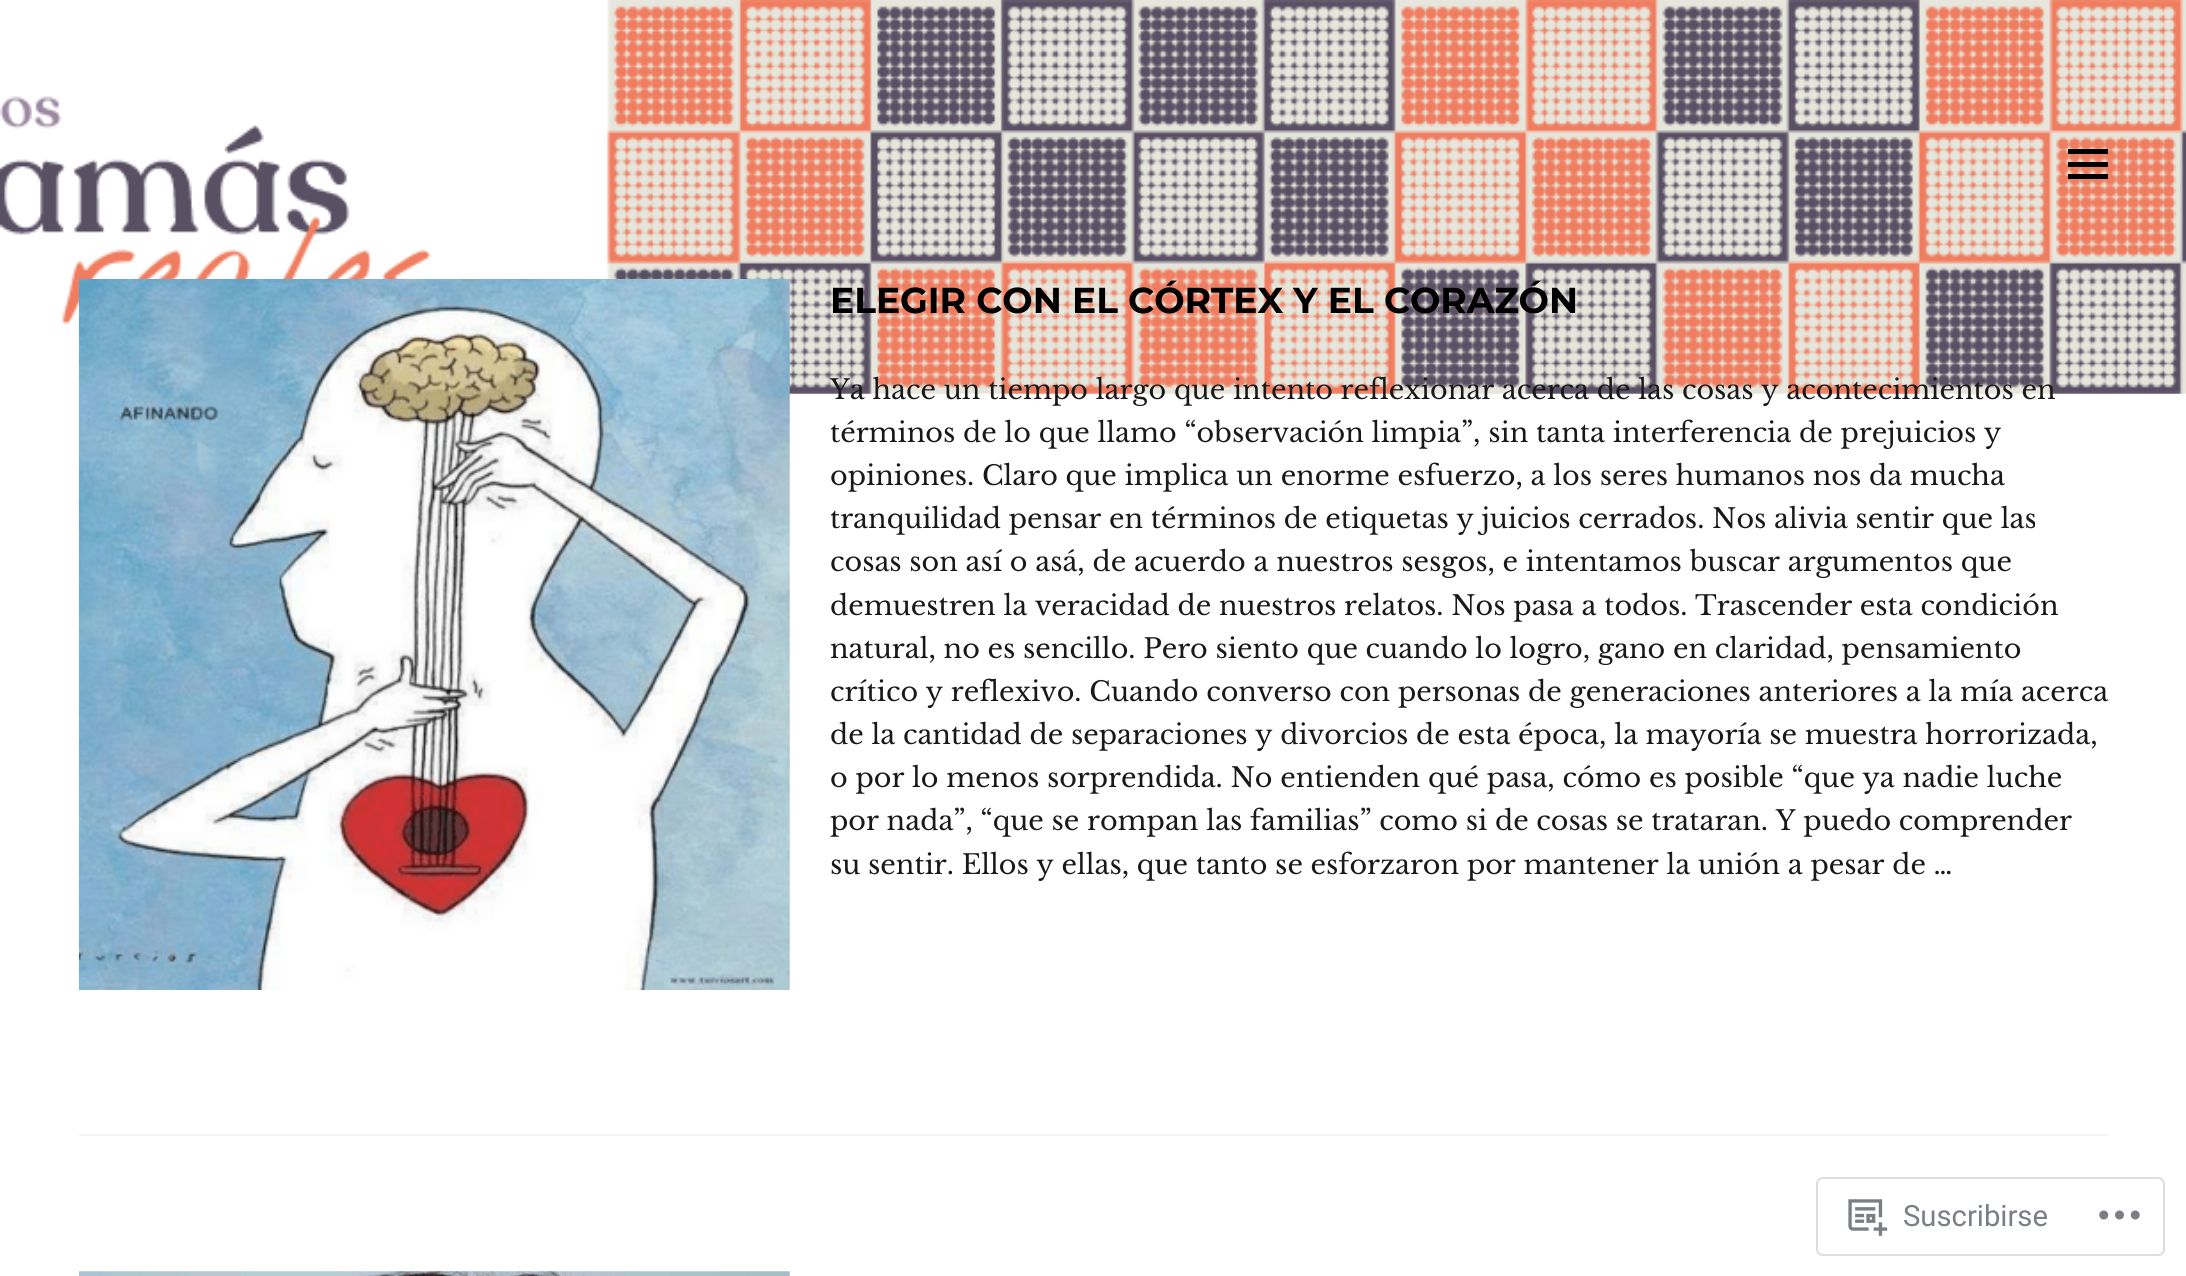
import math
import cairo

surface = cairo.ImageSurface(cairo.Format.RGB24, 2186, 1276)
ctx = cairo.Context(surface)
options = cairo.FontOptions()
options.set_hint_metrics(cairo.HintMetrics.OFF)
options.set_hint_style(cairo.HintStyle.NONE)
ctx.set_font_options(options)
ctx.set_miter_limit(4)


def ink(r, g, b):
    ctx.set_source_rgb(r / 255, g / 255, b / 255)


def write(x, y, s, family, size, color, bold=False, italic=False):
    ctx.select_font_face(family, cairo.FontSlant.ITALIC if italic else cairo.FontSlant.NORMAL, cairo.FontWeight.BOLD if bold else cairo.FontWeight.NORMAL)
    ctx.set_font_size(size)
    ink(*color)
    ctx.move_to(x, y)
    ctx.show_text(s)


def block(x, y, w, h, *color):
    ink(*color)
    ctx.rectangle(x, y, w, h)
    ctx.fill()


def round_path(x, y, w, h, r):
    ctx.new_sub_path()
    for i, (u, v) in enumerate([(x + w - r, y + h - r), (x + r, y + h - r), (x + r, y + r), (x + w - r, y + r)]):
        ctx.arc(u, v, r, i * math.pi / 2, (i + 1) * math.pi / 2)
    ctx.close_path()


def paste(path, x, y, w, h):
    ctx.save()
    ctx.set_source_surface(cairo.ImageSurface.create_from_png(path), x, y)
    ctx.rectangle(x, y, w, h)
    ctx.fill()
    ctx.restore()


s1 = dict(family="Montserrat Thin", size=36, color=(0, 0, 0))
s2 = dict(family="Libre Baskerville", size=27, color=(25, 25, 25))
s3 = dict(family="Roboto", size=29.25, color=(123, 127, 133))

ink(255, 255, 255)
ctx.paint()
paste("pic1.png", 0, 0, 2186, 394)
ink(0, 0, 0)
ctx.new_path()
ctx.move_to(2068, 179)
ctx.line_to(2068, 174)
ctx.line_to(2108, 174)
ctx.line_to(2108, 179)
ctx.close_path()
ctx.move_to(2068, 149)
ctx.line_to(2108, 149)
ctx.line_to(2108, 154)
ctx.line_to(2068, 154)
ctx.close_path()
ctx.move_to(2068, 167)
ctx.line_to(2068, 162)
ctx.line_to(2108, 162)
ctx.line_to(2108, 167)
ctx.close_path()
ctx.fill()
block(79, 1134, 2029, 2, 245, 245, 245)
paste("pic2.png", 78, 279, 712, 711)
write(830, 313, "ELEGIR CON EL CÓRTEX Y EL CORAZÓN", **s1)
write(830, 399, "Ya hace un tiempo largo que intento reflexionar acerca de las cosas y acontecimientos en", **s2)
write(830, 442, "términos de lo que llamo “observación limpia”, sin tanta interferencia de prejuicios y", **s2)
write(830, 485, "opiniones. Claro que implica un enorme esfuerzo, a los seres humanos nos da mucha", **s2)
write(830, 528, "tranquilidad pensar en términos de etiquetas y juicios cerrados. Nos alivia sentir que las", **s2)
write(830, 571, "cosas son así o asá, de acuerdo a nuestros sesgos, e intentamos buscar argumentos que", **s2)
write(830, 615, "demuestren la veracidad de nuestros relatos. Nos pasa a todos. Trascender esta condición", **s2)
write(830, 658, "natural, no es sencillo. Pero siento que cuando lo logro, gano en claridad, pensamiento", **s2)
write(830, 701, "crítico y reflexivo. Cuando converso con personas de generaciones anteriores a la mía acerca", **s2)
write(830, 744, "de la cantidad de separaciones y divorcios de esta época, la mayoría se muestra horrorizada,", **s2)
write(830, 787, "o por lo menos sorprendida. No entienden qué pasa, cómo es posible “que ya nadie luche", **s2)
write(830, 830, "por nada”, “que se rompan las familias” como si de cosas se trataran. Y puedo comprender", **s2)
write(830, 874, "su sentir. Ellos y ellas, que tanto se esforzaron por mantener la unión a pesar de …", **s2)
paste("pic3.png", 78, 1271, 712, 5)
round_path(1817, 1178, 347, 77, 6)
ink(221, 221, 223)
ctx.stroke()
paste("pic4.png", 1848, 1199, 40, 37)
write(1903, 1226, "Suscribirse", **s3)
paste("pic5.png", 2099, 1210, 41, 10)
surface.write_to_png("screenshot.png")
